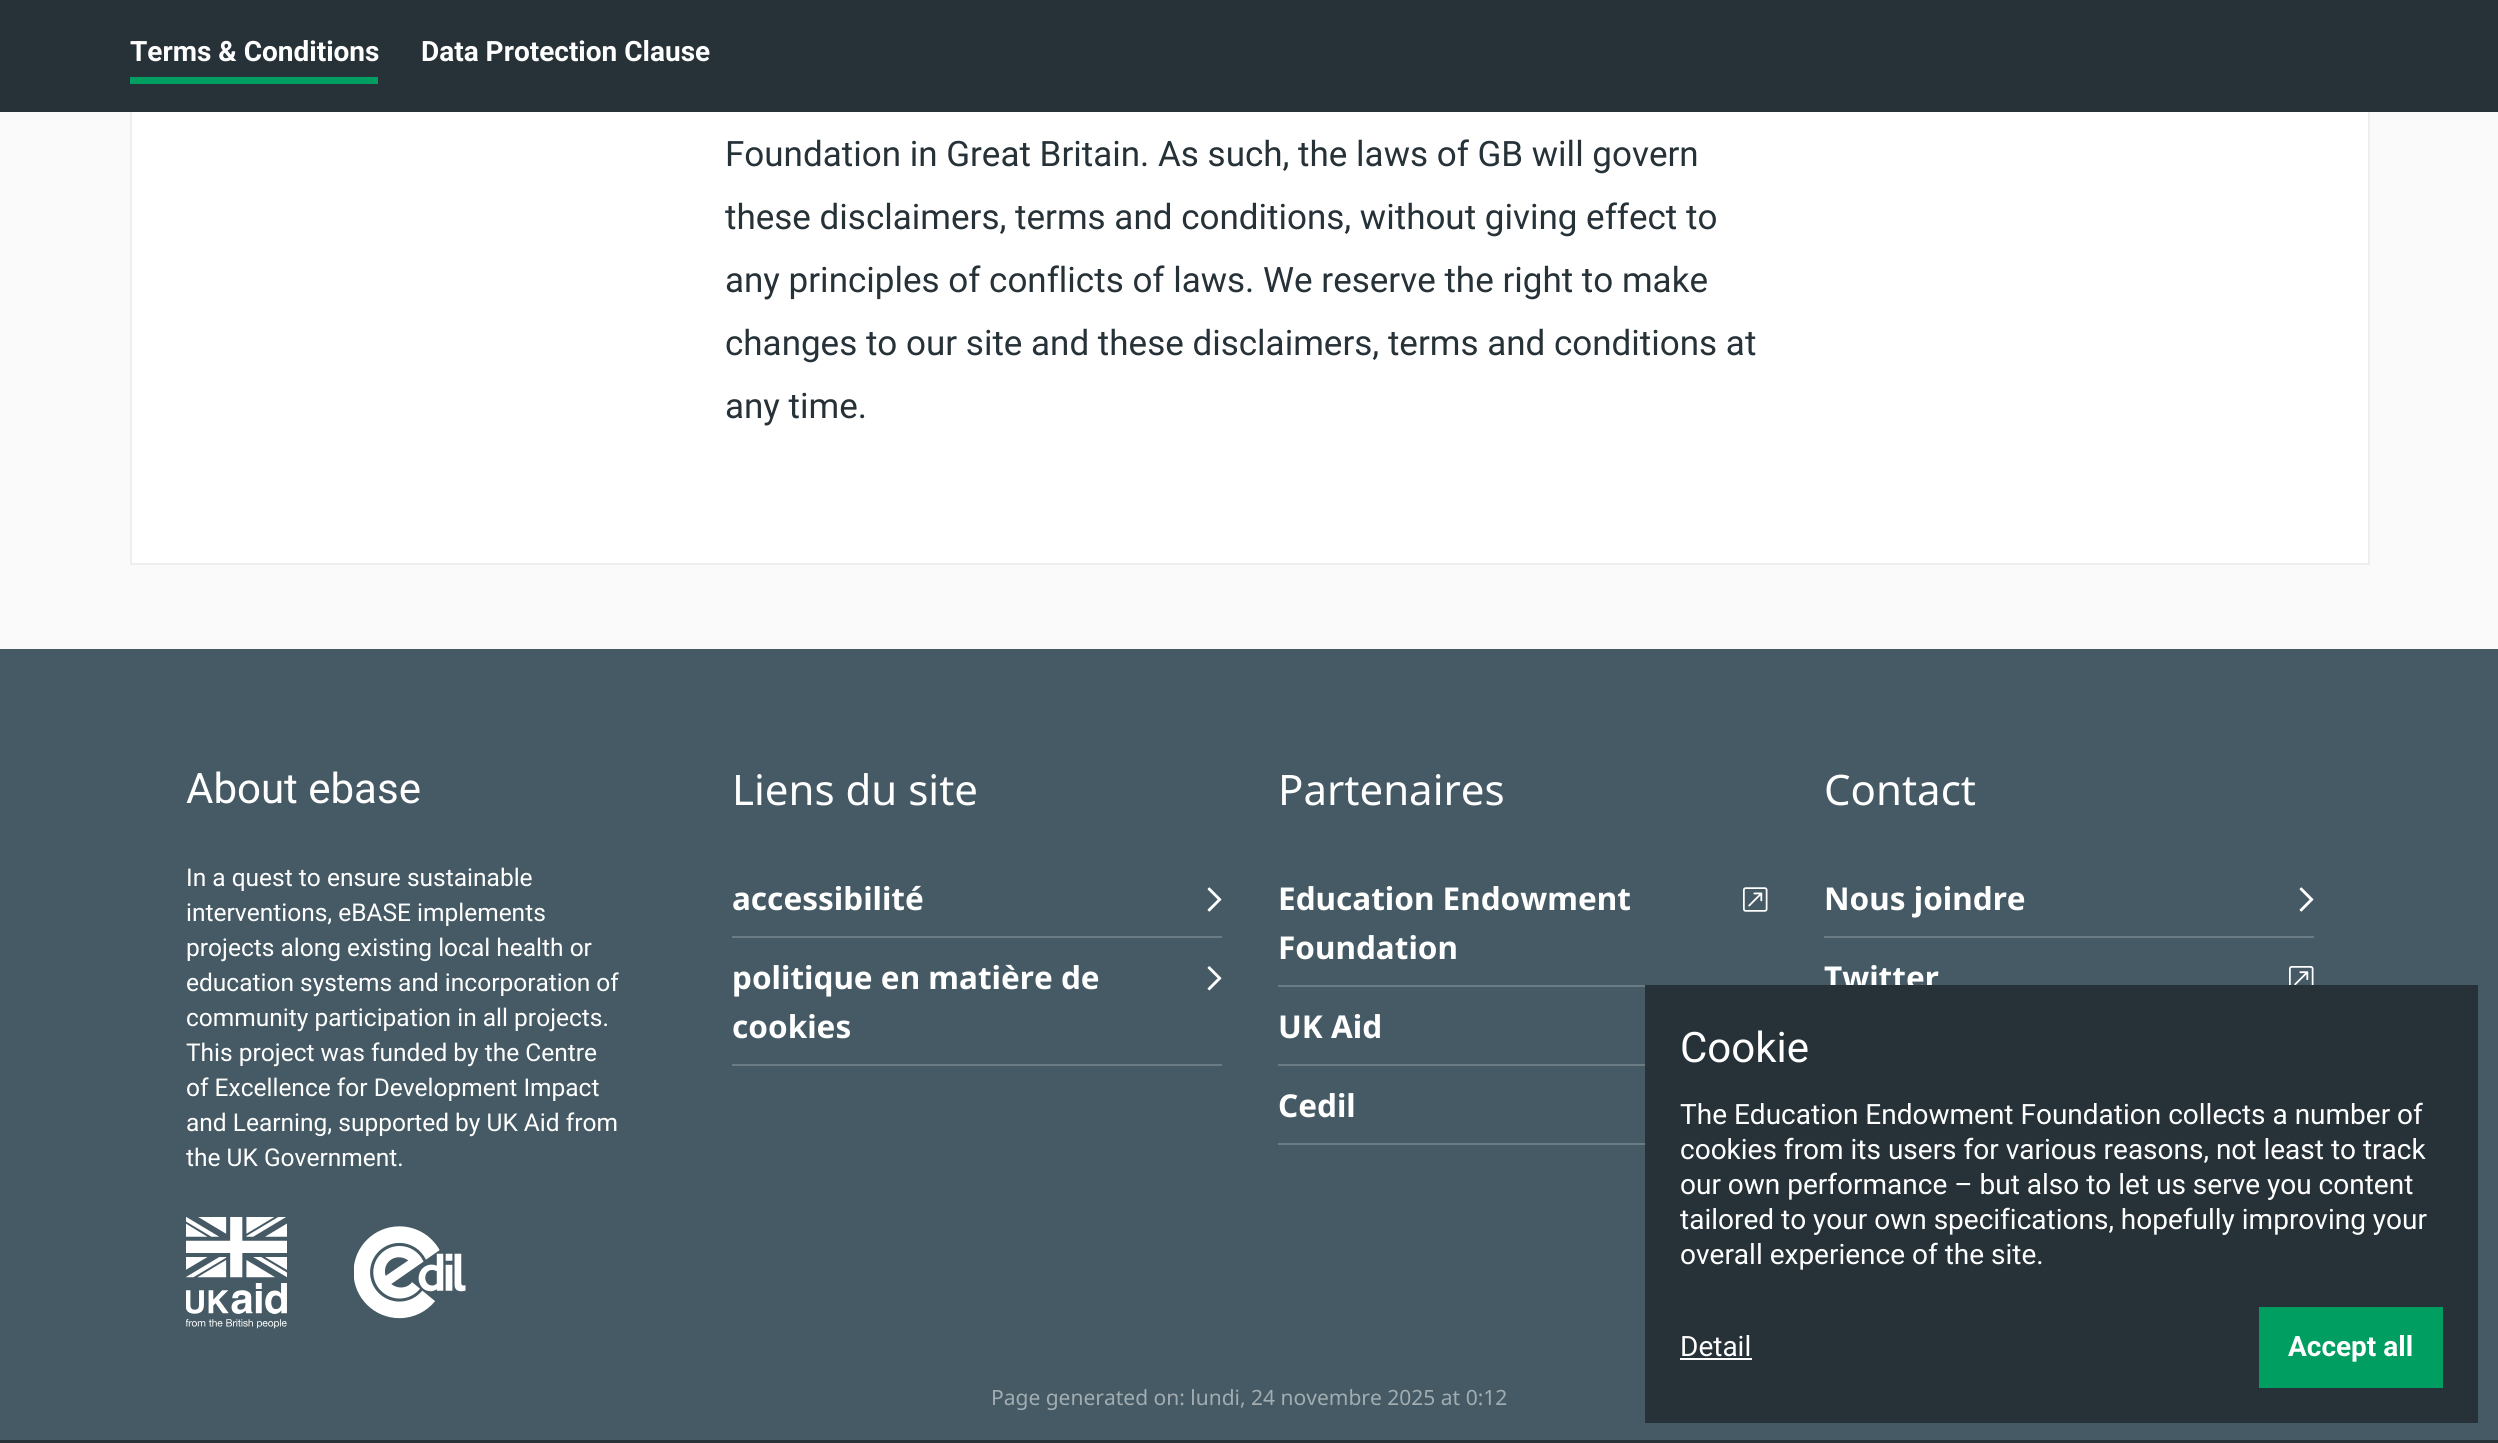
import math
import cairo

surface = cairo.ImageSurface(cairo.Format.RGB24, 2498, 1443)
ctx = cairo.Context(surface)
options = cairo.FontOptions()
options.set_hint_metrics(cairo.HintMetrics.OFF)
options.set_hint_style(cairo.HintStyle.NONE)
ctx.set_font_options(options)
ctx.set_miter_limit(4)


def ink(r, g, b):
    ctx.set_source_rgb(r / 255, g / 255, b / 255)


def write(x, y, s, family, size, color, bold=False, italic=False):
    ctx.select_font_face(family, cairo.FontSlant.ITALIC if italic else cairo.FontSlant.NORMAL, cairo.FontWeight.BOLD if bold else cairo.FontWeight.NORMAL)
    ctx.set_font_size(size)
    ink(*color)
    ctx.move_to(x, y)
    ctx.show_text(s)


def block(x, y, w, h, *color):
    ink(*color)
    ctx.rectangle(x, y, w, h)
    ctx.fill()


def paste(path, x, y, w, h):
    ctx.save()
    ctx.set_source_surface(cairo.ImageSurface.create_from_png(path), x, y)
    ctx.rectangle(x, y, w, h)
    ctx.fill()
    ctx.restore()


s1 = dict(family="Roboto", size=28, color=(255, 255, 255), bold=True)
s2 = dict(family="Roboto", size=35, color=(38, 50, 56))
s3 = dict(family="Noto Sans", size=31.5, color=(255, 255, 255), bold=True)
s4 = dict(family="Roboto", size=42, color=(255, 255, 255))
s5 = dict(family="Roboto", size=28, color=(255, 255, 255))
s6 = dict(family="Roboto", size=24.5, color=(255, 255, 255))
s7 = dict(family="Noto Sans", size=42, color=(255, 255, 255))
s8 = dict(family="Noto Sans", size=21, color=(162, 173, 178))

ink(250, 250, 250)
ctx.paint()
block(132, 112, 2236, 451, 255, 255, 255)
ctx.rectangle(131, -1, 2238, 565)
ink(238, 238, 238)
ctx.stroke()
block(0, 0, 2498, 112, 38, 50, 56)
write(130, 61, "Terms & Conditions", **s1)
write(421, 61, "Data Protection Clause", **s1)
block(130, 77, 248, 7, 0, 158, 96)
write(725, 166, "Foundation in Great Britain. As such, the laws of GB will govern", **s2)
write(725, 229, "these disclaimers, terms and conditions, without giving effect to", **s2)
write(725, 292, "any principles of conflicts of laws. We reserve the right to make", **s2)
write(725, 355, "changes to our site and these disclaimers, terms and conditions at", **s2)
write(725, 418, "any time.", **s2)
block(0, 649, 2498, 791, 69, 90, 100)
write(1824, 989, "Twitter", **s3)
block(1645, 985, 833, 438, 38, 50, 56)
write(1680, 1062, "Cookie", **s4)
write(1680, 1124, "The Education Endowment Foundation collects a number of", **s5)
write(1680, 1159, "cookies from its users for various reasons, not least to track", **s5)
write(1680, 1194, "our own performance – but also to let us serve you content", **s5)
write(1680, 1229, "tailored to your own specifications, hopefully improving your", **s5)
write(1680, 1264, "overall experience of the site.", **s5)
write(1680, 1356, "Detail", **s5)
block(1680, 1358, 72, 2, 255, 255, 255)
block(2259, 1307, 184, 81, 0, 158, 96)
write(2288, 1356, "Accept all", **s1)
write(186, 803, "About ebase", **s4)
write(186, 886, "In a quest to ensure sustainable", **s6)
write(186, 921, "interventions, eBASE implements", **s6)
write(186, 956, "projects along existing local health or", **s6)
write(186, 991, "education systems and incorporation of", **s6)
write(186, 1026, "community participation in all projects.", **s6)
write(186, 1061, "This project was funded by the Centre", **s6)
write(186, 1096, "of Excellence for Development Impact", **s6)
write(186, 1131, "and Learning, supported by UK Aid from", **s6)
write(186, 1166, "the UK Government.", **s6)
paste("pic1.png", 186, 1217, 101, 112)
paste("pic2.png", 354, 1226, 112, 93)
write(732, 805, "Liens du site", **s7)
block(732, 936, 490, 2, 106, 123, 131)
write(732, 910, "accessibilité", **s3)
paste("pic3.png", 1207, 887, 15, 25)
block(732, 1064, 490, 2, 106, 123, 131)
write(732, 989, "politique en matière de", **s3)
paste("pic4.png", 1207, 966, 15, 25)
write(732, 1038, "cookies", **s3)
write(1278, 805, "Partenaires", **s7)
block(1278, 985, 367, 2, 106, 123, 131)
write(1278, 910, "Education Endowment", **s3)
paste("pic5.png", 1743, 887, 25, 25)
write(1278, 959, "Foundation", **s3)
block(1278, 1064, 367, 2, 106, 123, 131)
write(1278, 1038, "UK Aid", **s3)
block(1278, 1143, 367, 2, 106, 123, 131)
write(1278, 1117, "Cedil", **s3)
write(1824, 805, "Contact", **s7)
block(1824, 936, 490, 2, 106, 123, 131)
write(1824, 910, "Nous joindre", **s3)
paste("pic3.png", 2299, 887, 15, 25)
paste("pic6.png", 2289, 966, 25, 19)
write(991, 1405, "Page generated on: lundi, 24 novembre 2025 at 0:12", **s8)
block(0, 1440, 2498, 3, 38, 50, 56)
surface.write_to_png("screenshot.png")
